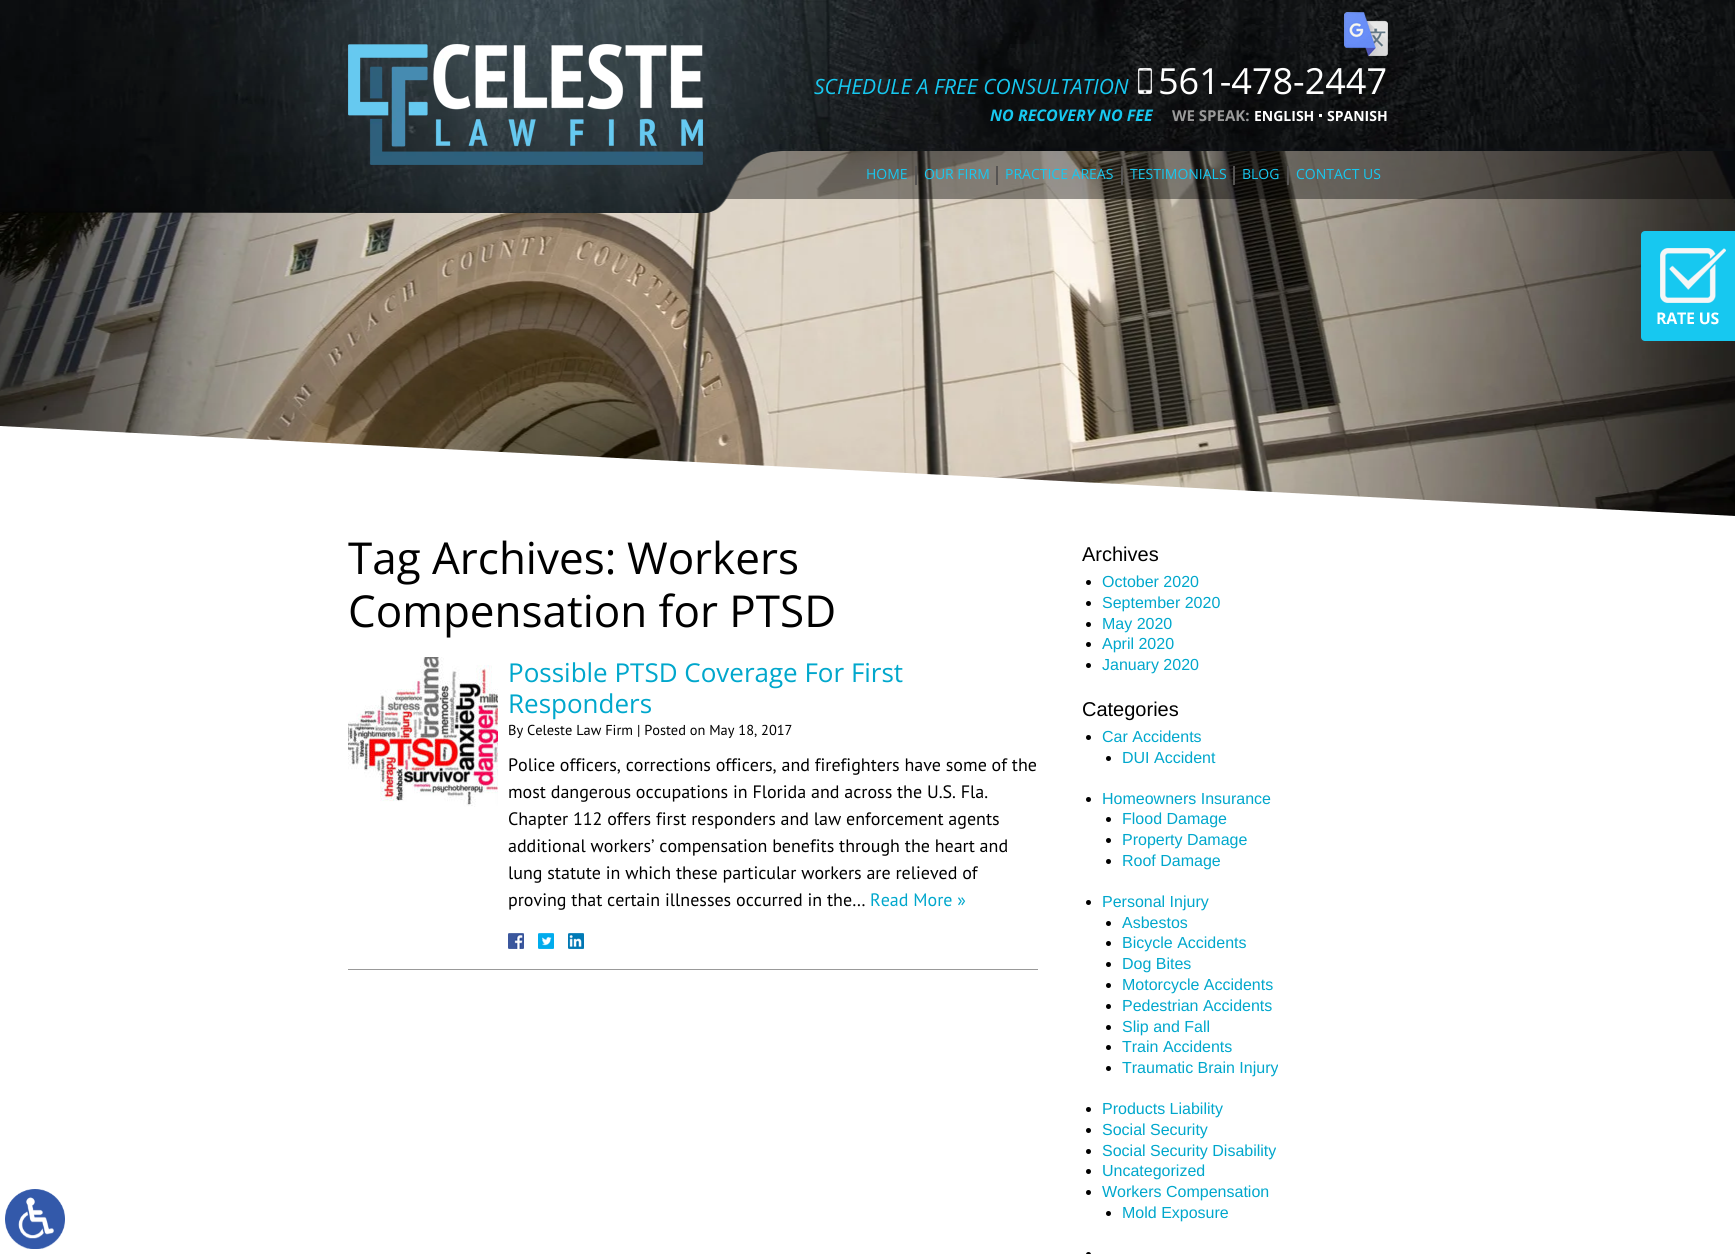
import math
import cairo

surface = cairo.ImageSurface(cairo.Format.RGB24, 1735, 1254)
ctx = cairo.Context(surface)
options = cairo.FontOptions()
options.set_hint_metrics(cairo.HintMetrics.OFF)
options.set_hint_style(cairo.HintStyle.NONE)
ctx.set_font_options(options)
ctx.set_miter_limit(4)


def ink(r, g, b):
    ctx.set_source_rgb(r / 255, g / 255, b / 255)


def write(x, y, s, family, size, color, bold=False, italic=False):
    ctx.select_font_face(family, cairo.FontSlant.ITALIC if italic else cairo.FontSlant.NORMAL, cairo.FontWeight.BOLD if bold else cairo.FontWeight.NORMAL)
    ctx.set_font_size(size)
    ink(*color)
    ctx.move_to(x, y)
    ctx.show_text(s)


def block(x, y, w, h, *color):
    ink(*color)
    ctx.rectangle(x, y, w, h)
    ctx.fill()


def paste(path, x, y, w, h):
    ctx.save()
    ctx.set_source_surface(cairo.ImageSurface.create_from_png(path), x, y)
    ctx.rectangle(x, y, w, h)
    ctx.fill()
    ctx.restore()


s1 = dict(family="Open Sans", size=21, color=(23, 200, 240), italic=True)
s2 = dict(family="Open Sans", size=36, color=(255, 255, 255))
s3 = dict(family="Open Sans", size=16, color=(23, 200, 240), bold=True, italic=True)
s4 = dict(family="Open Sans", size=15, color=(154, 154, 154), bold=True)
s5 = dict(family="Open Sans", size=14, color=(255, 255, 255), bold=True)
s6 = dict(family="Open Sans", size=14, color=(23, 200, 240))
s7 = dict(family="Open Sans", size=44, color=(0, 0, 0))
s8 = dict(family="Open Sans", size=26, color=(0, 167, 204))
s9 = dict(family="PT Sans", size=14.4, color=(0, 0, 0))
s10 = dict(family="PT Sans", size=18, color=(0, 0, 0))
s11 = dict(family="PT Sans", size=18, color=(0, 167, 204))
s12 = dict(family="Liberation Sans", size=20, color=(0, 0, 0))
s13 = dict(family="Liberation Sans", size=16, color=(0, 167, 204))

ink(255, 255, 255)
ctx.paint()
paste("pic5.png", 0, 151, 1735, 365)
ctx.set_source_rgba(0, 0, 0, 0.4)
ctx.rectangle(724, 151, 1011, 48)
ctx.fill()
paste("pic1.png", 0, 0, 1735, 213)
paste("pic2.png", 348, 44, 355, 121)
paste("pic3.png", 1344, 12, 44, 44)
write(814, 94, "SCHEDULE A FREE CONSULTATION", **s1)
paste("pic4.png", 1138, 68, 14, 26)
write(1158, 94, "561-478-2447", **s2)
write(990, 121, "NO RECOVERY NO FEE", **s3)
write(1172, 121, "WE SPEAK:", **s4)
write(1254, 121, "ENGLISH", **s5)
block(1319, 114, 3, 3, 255, 255, 255)
write(1327, 121, "SPANISH", **s5)
write(866, 179, "HOME", **s6)
block(915, 166, 2, 19, 86, 84, 83)
write(924, 179, "OUR FIRM", **s6)
block(996, 166, 2, 19, 86, 84, 83)
write(1005, 179, "PRACTICE AREAS", **s6)
block(1121, 166, 2, 19, 86, 84, 83)
write(1130, 179, "TESTIMONIALS", **s6)
block(1233, 166, 2, 19, 86, 84, 83)
write(1242, 179, "BLOG", **s6)
block(1287, 166, 2, 19, 86, 84, 83)
write(1296, 179, "CONTACT US", **s6)
ink(255, 255, 255)
ctx.new_path()
ctx.move_to(0, 426)
ctx.line_to(1735, 516)
ctx.line_to(1735, 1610)
ctx.line_to(0, 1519)
ctx.close_path()
ctx.fill()
ctx.save()
ctx.rectangle(348, 471, 1040, 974)
ctx.clip()
write(348, 574, "Tag Archives:", **s7)
ctx.restore()
write(627, 574, "Workers", **s7)
write(348, 627, "Compensation for PTSD", **s7)
block(348, 969, 690, 1, 153, 153, 153)
paste("pic6.png", 348, 657, 150, 150)
write(508, 682, "Possible PTSD Coverage For First", **s8)
write(508, 713, "Responders", **s8)
write(508, 735, "By Celeste Law Firm | Posted on May 18, 2017", **s9)
write(508, 771, "Police officers, corrections officers, and firefighters have some of the", **s10)
write(508, 798, "most dangerous occupations in Florida and across the U.S. Fla.", **s10)
write(508, 825, "Chapter 112 offers first responders and law enforcement agents", **s10)
write(508, 852, "additional workers’ compensation benefits through the heart and", **s10)
write(508, 879, "lung statute in which these particular workers are relieved of", **s10)
write(508, 906, "proving that certain illnesses occurred in the…", **s10)
write(870, 906, "Read More »", **s11)
paste("pic7.png", 508, 933, 16, 16)
paste("pic8.png", 538, 933, 16, 16)
paste("pic9.png", 568, 933, 16, 16)
write(1082, 561, "Archives", **s12)
ctx.new_path()
ctx.arc(1088.5, 582.5, 2.5, 0, 2 * math.pi)
ctx.fill()
write(1102, 587, "October 2020", **s13)
ink(0, 0, 0)
ctx.new_path()
ctx.arc(1088.5, 603.5, 2.5, 0, 2 * math.pi)
ctx.fill()
write(1102, 608, "September 2020", **s13)
ink(0, 0, 0)
ctx.new_path()
ctx.arc(1088.5, 624.5, 2.5, 0, 2 * math.pi)
ctx.fill()
write(1102, 629, "May 2020", **s13)
ink(0, 0, 0)
ctx.new_path()
ctx.arc(1088.5, 644.5, 2.5, 0, 2 * math.pi)
ctx.fill()
write(1102, 649, "April 2020", **s13)
ink(0, 0, 0)
ctx.new_path()
ctx.arc(1088.5, 665.5, 2.5, 0, 2 * math.pi)
ctx.fill()
write(1102, 670, "January 2020", **s13)
write(1082, 716, "Categories", **s12)
ctx.new_path()
ctx.arc(1088.5, 737.5, 2.5, 0, 2 * math.pi)
ctx.fill()
write(1102, 742, "Car Accidents", **s13)
ink(0, 0, 0)
ctx.new_path()
ctx.arc(1108.5, 758.5, 2.5, 0, 2 * math.pi)
ctx.fill()
write(1122, 763, "DUI Accident", **s13)
ink(0, 0, 0)
ctx.new_path()
ctx.arc(1088.5, 799.5, 2.5, 0, 2 * math.pi)
ctx.fill()
write(1102, 804, "Homeowners Insurance", **s13)
ink(0, 0, 0)
ctx.new_path()
ctx.arc(1108.5, 819.5, 2.5, 0, 2 * math.pi)
ctx.fill()
write(1122, 824, "Flood Damage", **s13)
ink(0, 0, 0)
ctx.new_path()
ctx.arc(1108.5, 840.5, 2.5, 0, 2 * math.pi)
ctx.fill()
write(1122, 845, "Property Damage", **s13)
ink(0, 0, 0)
ctx.new_path()
ctx.arc(1108.5, 861.5, 2.5, 0, 2 * math.pi)
ctx.fill()
write(1122, 866, "Roof Damage", **s13)
ink(0, 0, 0)
ctx.new_path()
ctx.arc(1088.5, 902.5, 2.5, 0, 2 * math.pi)
ctx.fill()
write(1102, 907, "Personal Injury", **s13)
ink(0, 0, 0)
ctx.new_path()
ctx.arc(1108.5, 923.5, 2.5, 0, 2 * math.pi)
ctx.fill()
write(1122, 928, "Asbestos", **s13)
ink(0, 0, 0)
ctx.new_path()
ctx.arc(1108.5, 943.5, 2.5, 0, 2 * math.pi)
ctx.fill()
write(1122, 948, "Bicycle Accidents", **s13)
ink(0, 0, 0)
ctx.new_path()
ctx.arc(1108.5, 964.5, 2.5, 0, 2 * math.pi)
ctx.fill()
write(1122, 969, "Dog Bites", **s13)
ink(0, 0, 0)
ctx.new_path()
ctx.arc(1108.5, 985.5, 2.5, 0, 2 * math.pi)
ctx.fill()
write(1122, 990, "Motorcycle Accidents", **s13)
ink(0, 0, 0)
ctx.new_path()
ctx.arc(1108.5, 1006.5, 2.5, 0, 2 * math.pi)
ctx.fill()
write(1122, 1011, "Pedestrian Accidents", **s13)
ink(0, 0, 0)
ctx.new_path()
ctx.arc(1108.5, 1027.5, 2.5, 0, 2 * math.pi)
ctx.fill()
write(1122, 1032, "Slip and Fall", **s13)
ink(0, 0, 0)
ctx.new_path()
ctx.arc(1108.5, 1047.5, 2.5, 0, 2 * math.pi)
ctx.fill()
write(1122, 1052, "Train Accidents", **s13)
ink(0, 0, 0)
ctx.new_path()
ctx.arc(1108.5, 1068.5, 2.5, 0, 2 * math.pi)
ctx.fill()
write(1122, 1073, "Traumatic Brain Injury", **s13)
ink(0, 0, 0)
ctx.new_path()
ctx.arc(1088.5, 1109.5, 2.5, 0, 2 * math.pi)
ctx.fill()
write(1102, 1114, "Products Liability", **s13)
ink(0, 0, 0)
ctx.new_path()
ctx.arc(1088.5, 1130.5, 2.5, 0, 2 * math.pi)
ctx.fill()
write(1102, 1135, "Social Security", **s13)
ink(0, 0, 0)
ctx.new_path()
ctx.arc(1088.5, 1151.5, 2.5, 0, 2 * math.pi)
ctx.fill()
write(1102, 1156, "Social Security Disability", **s13)
ink(0, 0, 0)
ctx.new_path()
ctx.arc(1088.5, 1171.5, 2.5, 0, 2 * math.pi)
ctx.fill()
write(1102, 1176, "Uncategorized", **s13)
ink(0, 0, 0)
ctx.new_path()
ctx.arc(1088.5, 1192.5, 2.5, 0, 2 * math.pi)
ctx.fill()
write(1102, 1197, "Workers Compensation", **s13)
ink(0, 0, 0)
ctx.new_path()
ctx.arc(1108.5, 1213.5, 2.5, 0, 2 * math.pi)
ctx.fill()
write(1122, 1218, "Mold Exposure", **s13)
ink(0, 0, 0)
ctx.new_path()
ctx.arc(1088.5, 1254.5, 2.5, 0, 2 * math.pi)
ctx.fill()
paste("pic10.png", 1641, 231, 94, 110)
paste("pic11.png", 5, 1189, 60, 60)
surface.write_to_png("screenshot.png")
